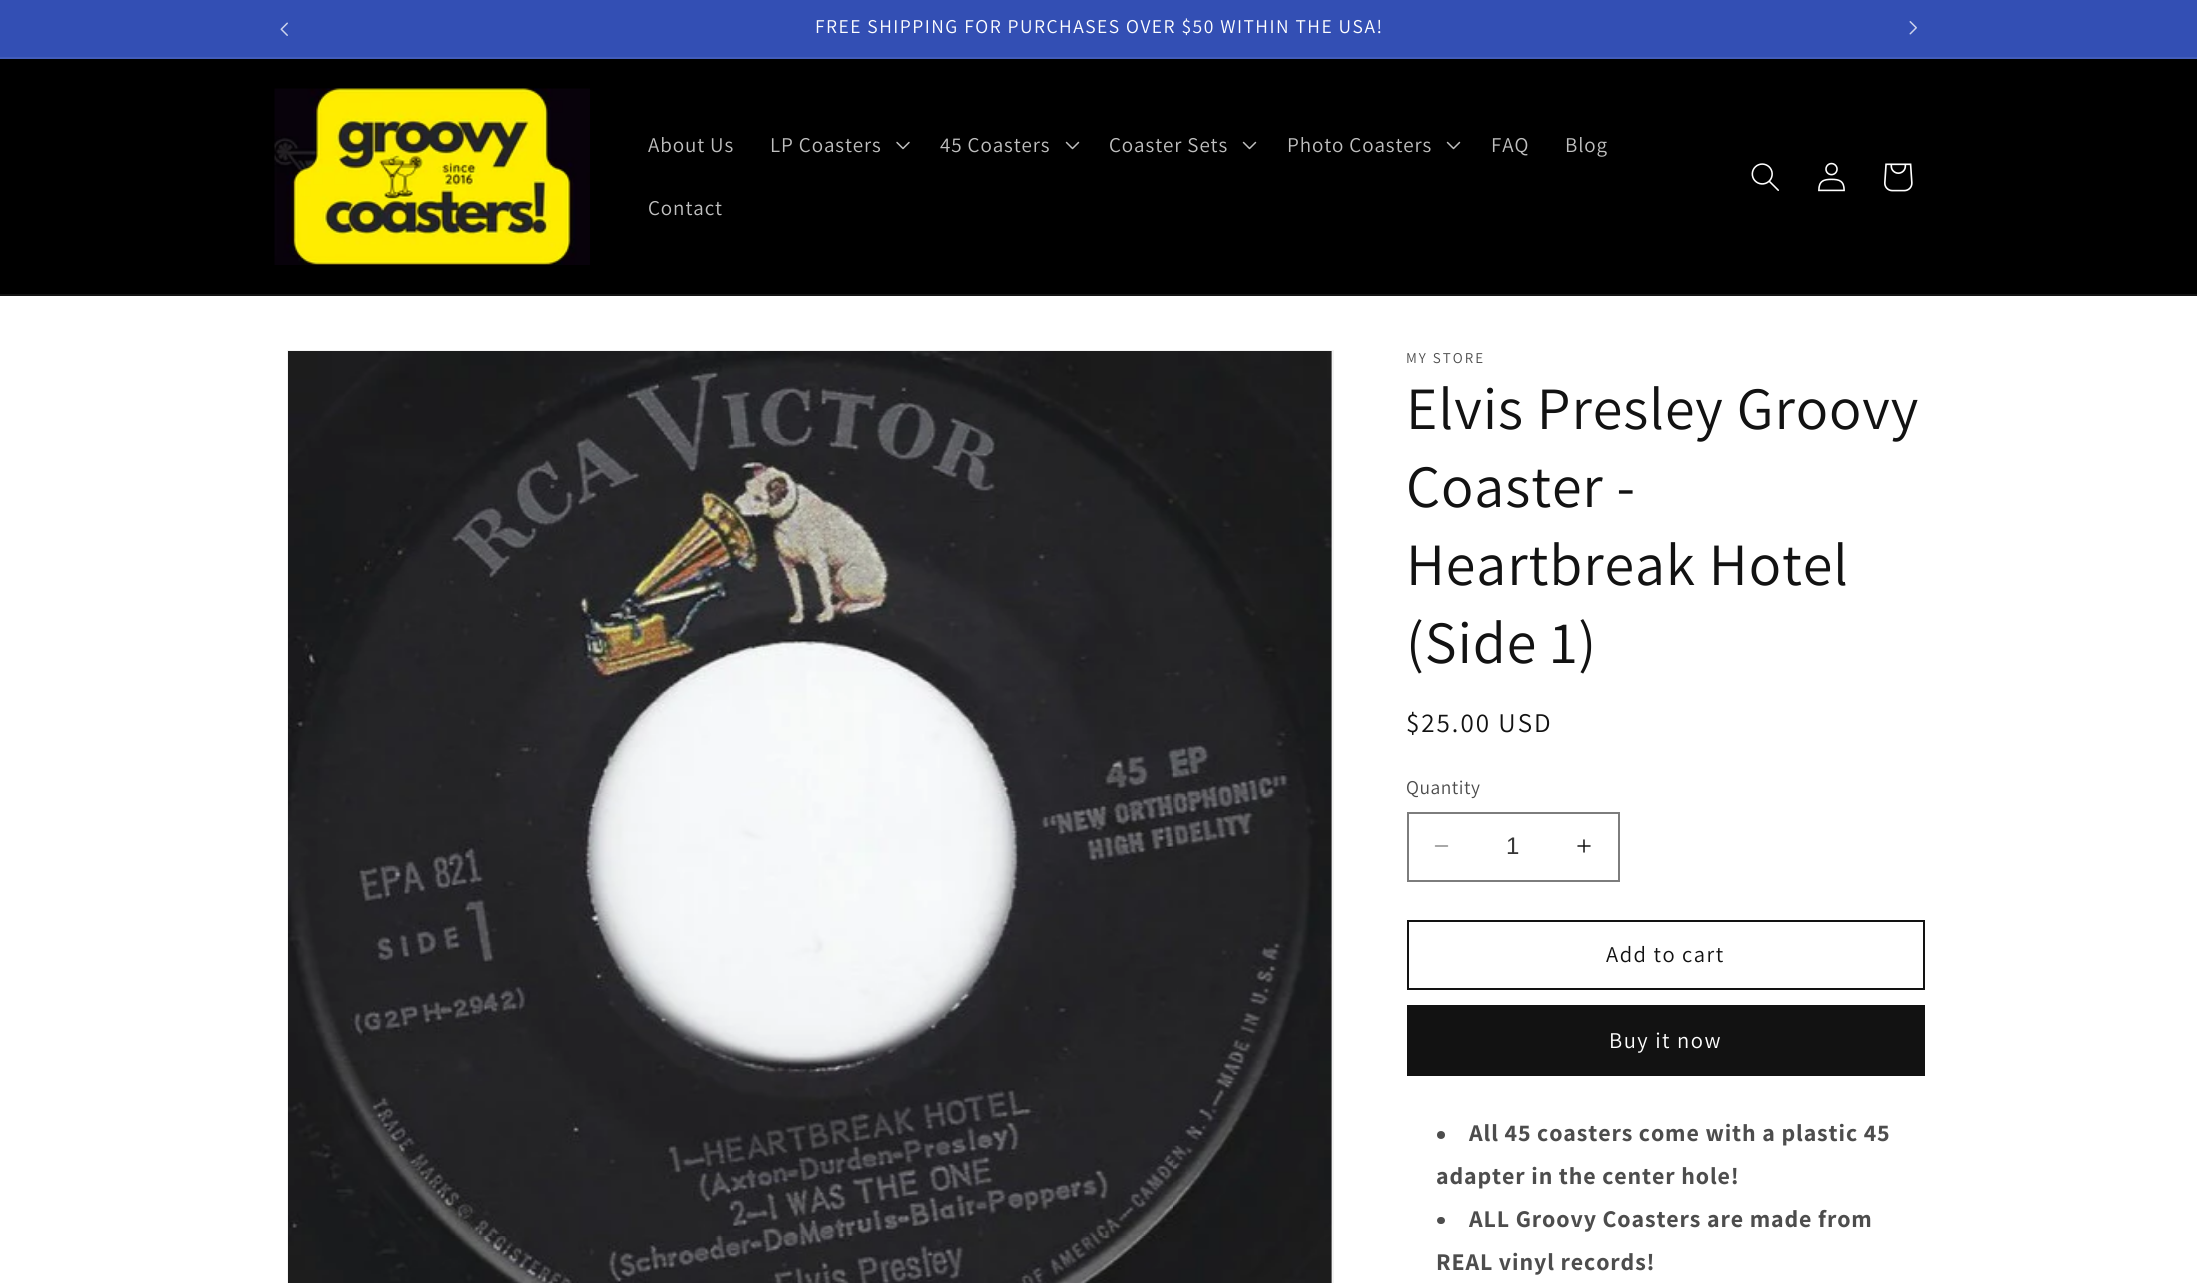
import math
import cairo

surface = cairo.ImageSurface(cairo.Format.RGB24, 2197, 1283)
ctx = cairo.Context(surface)
options = cairo.FontOptions()
options.set_hint_metrics(cairo.HintMetrics.OFF)
options.set_hint_style(cairo.HintStyle.NONE)
ctx.set_font_options(options)
ctx.set_miter_limit(4)


def ink(r, g, b):
    ctx.set_source_rgb(r / 255, g / 255, b / 255)


def write(x, y, s, family, size, color, bold=False, italic=False):
    ctx.select_font_face(family, cairo.FontSlant.ITALIC if italic else cairo.FontSlant.NORMAL, cairo.FontWeight.BOLD if bold else cairo.FontWeight.NORMAL)
    ctx.set_font_size(size)
    ink(*color)
    ctx.move_to(x, y)
    ctx.show_text(s)


def write_spaced(x, y, s, letter, word):
    ctx.move_to(x, y)
    for ch in s:
        ctx.show_text(ch)
        ctx.rel_move_to(letter + word * (ch == ' '), 0)


def block(x, y, w, h, *color):
    ink(*color)
    ctx.rectangle(x, y, w, h)
    ctx.fill()


def round_path(x, y, w, h, r):
    ctx.new_sub_path()
    for i, (u, v) in enumerate([(x + w - r, y + h - r), (x + r, y + h - r), (x + r, y + r), (x + w - r, y + r)]):
        ctx.arc(u, v, r, i * math.pi / 2, (i + 1) * math.pi / 2)
    ctx.close_path()


def paste(path, x, y, w, h):
    ctx.save()
    ctx.set_source_surface(cairo.ImageSurface.create_from_png(path), x, y)
    ctx.rectangle(x, y, w, h)
    ctx.fill()
    ctx.restore()


s1 = dict(family="Liberation Sans", size=24, color=(54, 54, 54))

ink(255, 255, 255)
ctx.paint()
block(0, 0, 2197, 57, 51, 79, 180)
block(0, 57, 2197, 2, 67, 93, 186)
paste("pic1.png", 280, 22, 8, 14)
ctx.select_font_face("Assistant")
ctx.set_font_size(19.5)
ink(255, 255, 255)
write_spaced(815, 33, "FREE SHIPPING FOR PURCHASES OVER $50 WITHIN THE USA!", 1.5, 0)
paste("pic2.png", 1909, 21, 8, 14)
block(0, 59, 2197, 235, 0, 0, 0)
block(0, 294, 2197, 2, 20, 20, 20)
paste("pic3.png", 274, 88, 316, 177)
ctx.set_font_size(21)
ink(191, 191, 191)
write_spaced(648, 152, "About Us", 0.9, 0)
write_spaced(770, 152, "LP Coasters", 0.9, 0)
paste("pic4.png", 896, 141, 14, 9)
write_spaced(940, 152, "45 Coasters", 0.9, 0)
paste("pic5.png", 1065, 141, 15, 9)
write_spaced(1109, 152, "Coaster Sets", 0.9, 0)
paste("pic5.png", 1242, 141, 15, 9)
write_spaced(1287, 152, "Photo Coasters", 0.9, 0)
paste("pic5.png", 1446, 141, 15, 9)
write_spaced(1491, 152, "FAQ", 0.9, 0)
write_spaced(1565, 152, "Blog", 0.9, 0)
write_spaced(648, 215, "Contact", 0.9, 0)
paste("pic6.png", 1751, 163, 28, 28)
paste("pic7.png", 1818, 162, 27, 30)
paste("pic8.png", 1884, 163, 29, 29)
ctx.rectangle(288, 351, 1045, 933)
ink(243, 243, 243)
ctx.stroke()
paste("pic9.png", 288, 351, 1044, 932)
ctx.set_font_size(15)
ink(77, 77, 77)
write_spaced(1406, 363, "MY STORE", 2, 0)
ctx.set_font_size(60)
ink(18, 18, 18)
write_spaced(1406, 429, "Elvis Presley Groovy", 0.9, 0)
write_spaced(1406, 507, "Coaster -", 0.9, 0)
write_spaced(1406, 585, "Heartbreak Hotel", 0.9, 0)
write_spaced(1406, 663, "(Side 1)", 0.9, 0)
ctx.set_font_size(27)
write_spaced(1406, 732, "$25.00 USD", 2, 0)
ctx.set_font_size(19.5)
ink(77, 77, 77)
write_spaced(1406, 794, "Quantity", 0.5, 0)
paste("pic10.png", 1434, 845, 15, 2)
paste("pic11.png", 1577, 839, 14, 14)
ctx.rectangle(1408, 813, 211, 68)
ink(125, 125, 125)
ctx.stroke()
write(1506, 854, "1", **s1)
ctx.rectangle(1408, 921, 516, 68)
ink(18, 18, 18)
ctx.stroke()
ctx.select_font_face("Assistant")
ctx.set_font_size(22.5)
write_spaced(1606, 962, "Add to cart", 1.5, 0)
block(1407, 1005, 518, 71, 18, 18, 18)
ink(255, 255, 255)
write_spaced(1609, 1048, "Buy it now", 1.5, 0)
ink(77, 77, 77)
ctx.new_path()
ctx.arc(1441, 1135, 4, 0, 2 * math.pi)
ctx.fill()
ctx.select_font_face("Assistant", cairo.FontSlant.NORMAL, cairo.FontWeight.BOLD)
ctx.set_font_size(24)
write_spaced(1469, 1141, "All 45 coasters come with a plastic 45", 0.9, 0)
write_spaced(1436, 1184, "adapter in the center hole!", 0.9, 0)
round_path(1437, 1217, 8, 7, 3.5)
ctx.fill()
write_spaced(1469, 1227, "ALL Groovy Coasters are made from", 0.9, 0)
write_spaced(1436, 1270, "REAL vinyl records!", 0.9, 0)
surface.write_to_png("screenshot.png")
